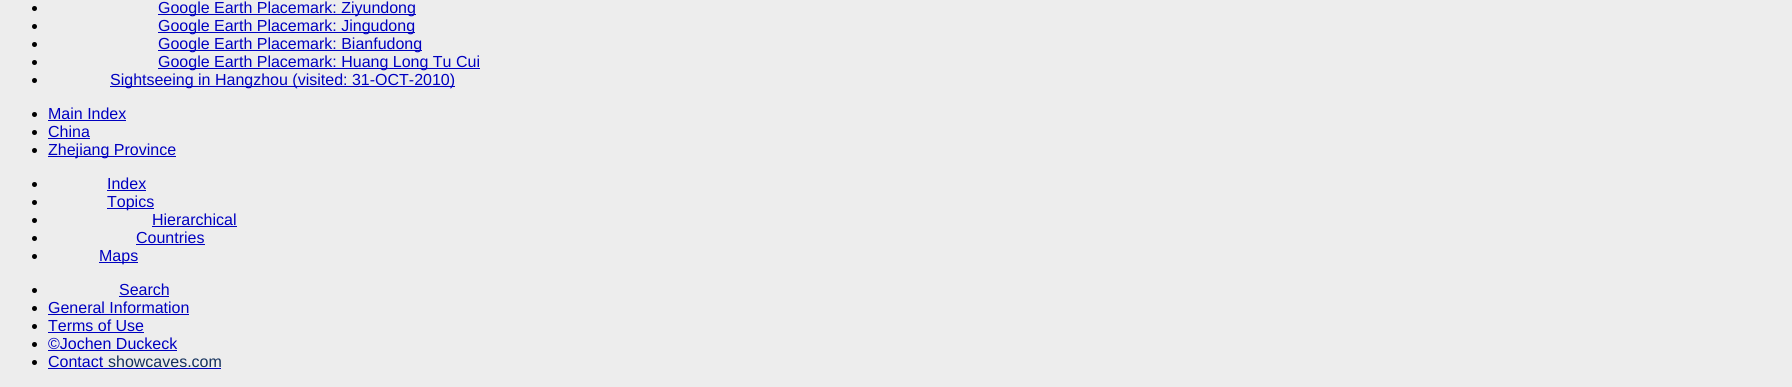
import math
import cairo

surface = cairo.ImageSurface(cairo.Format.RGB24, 1792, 387)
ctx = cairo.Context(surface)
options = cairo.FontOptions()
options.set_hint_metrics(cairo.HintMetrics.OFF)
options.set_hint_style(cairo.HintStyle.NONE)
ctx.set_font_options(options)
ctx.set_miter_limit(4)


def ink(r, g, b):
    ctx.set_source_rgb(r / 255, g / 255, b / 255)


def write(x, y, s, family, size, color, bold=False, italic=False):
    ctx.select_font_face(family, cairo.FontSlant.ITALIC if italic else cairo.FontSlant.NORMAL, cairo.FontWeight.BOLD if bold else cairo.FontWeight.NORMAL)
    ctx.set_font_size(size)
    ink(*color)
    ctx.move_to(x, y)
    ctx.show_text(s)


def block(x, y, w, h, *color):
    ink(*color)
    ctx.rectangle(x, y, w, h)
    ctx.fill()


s1 = dict(family="Liberation Sans", size=16, color=(0, 0, 192))
s2 = dict(family="Liberation Sans", size=16, color=(19, 48, 91))

ink(237, 237, 237)
ctx.paint()
ink(0, 0, 0)
ctx.arc(34.5, 8.5, 2.5, 0, 2 * math.pi)
ctx.fill()
block(158, 14, 258, 1, 0, 0, 192)
write(158, 13, "Google Earth Placemark: Ziyundong", **s1)
ink(0, 0, 0)
ctx.new_path()
ctx.arc(34.5, 26.5, 2.5, 0, 2 * math.pi)
ctx.fill()
block(158, 32, 257, 1, 0, 0, 192)
write(158, 31, "Google Earth Placemark: Jingudong", **s1)
ink(0, 0, 0)
ctx.new_path()
ctx.arc(34.5, 44.5, 2.5, 0, 2 * math.pi)
ctx.fill()
block(158, 50, 264, 1, 0, 0, 192)
write(158, 49, "Google Earth Placemark: Bianfudong", **s1)
ink(0, 0, 0)
ctx.new_path()
ctx.arc(34.5, 62.5, 2.5, 0, 2 * math.pi)
ctx.fill()
block(158, 68, 322, 1, 0, 0, 192)
write(158, 67, "Google Earth Placemark: Huang Long Tu Cui", **s1)
ink(0, 0, 0)
ctx.new_path()
ctx.arc(34.5, 80.5, 2.5, 0, 2 * math.pi)
ctx.fill()
block(110, 86, 345, 1, 0, 0, 192)
write(110, 85, "Sightseeing in Hangzhou (visited: 31-OCT-2010)", **s1)
ink(0, 0, 0)
ctx.new_path()
ctx.arc(34.5, 114.5, 2.5, 0, 2 * math.pi)
ctx.fill()
write(48, 119, "Main Index", **s1)
block(48, 120, 78, 1, 0, 0, 192)
ink(0, 0, 0)
ctx.new_path()
ctx.arc(34.5, 132.5, 2.5, 0, 2 * math.pi)
ctx.fill()
write(48, 137, "China", **s1)
block(48, 138, 42, 1, 0, 0, 192)
ink(0, 0, 0)
ctx.new_path()
ctx.arc(34.5, 150.5, 2.5, 0, 2 * math.pi)
ctx.fill()
block(48, 156, 128, 1, 0, 0, 192)
write(48, 155, "Zhejiang Province", **s1)
ink(0, 0, 0)
ctx.new_path()
ctx.arc(34.5, 184.5, 2.5, 0, 2 * math.pi)
ctx.fill()
write(107, 189, "Index", **s1)
block(107, 190, 39, 1, 0, 0, 192)
ink(0, 0, 0)
ctx.new_path()
ctx.arc(34.5, 202.5, 2.5, 0, 2 * math.pi)
ctx.fill()
block(107, 208, 47, 1, 0, 0, 192)
write(107, 207, "Topics", **s1)
ink(0, 0, 0)
ctx.new_path()
ctx.arc(34.5, 220.5, 2.5, 0, 2 * math.pi)
ctx.fill()
write(152, 225, "Hierarchical", **s1)
block(152, 226, 85, 1, 0, 0, 192)
ink(0, 0, 0)
ctx.new_path()
ctx.arc(34.5, 238.5, 2.5, 0, 2 * math.pi)
ctx.fill()
write(136, 243, "Countries", **s1)
block(136, 244, 69, 1, 0, 0, 192)
ink(0, 0, 0)
ctx.new_path()
ctx.arc(34.5, 256.5, 2.5, 0, 2 * math.pi)
ctx.fill()
block(99, 262, 39, 1, 0, 0, 192)
write(99, 261, "Maps", **s1)
ink(0, 0, 0)
ctx.new_path()
ctx.arc(34.5, 290.5, 2.5, 0, 2 * math.pi)
ctx.fill()
write(119, 295, "Search", **s1)
block(119, 296, 50, 1, 0, 0, 192)
ink(0, 0, 0)
ctx.new_path()
ctx.arc(34.5, 308.5, 2.5, 0, 2 * math.pi)
ctx.fill()
write(48, 313, "General Information", **s1)
block(48, 314, 141, 1, 0, 0, 192)
ink(0, 0, 0)
ctx.new_path()
ctx.arc(34.5, 326.5, 2.5, 0, 2 * math.pi)
ctx.fill()
write(48, 331, "Terms of Use", **s1)
block(48, 332, 96, 1, 0, 0, 192)
ink(0, 0, 0)
ctx.new_path()
ctx.arc(34.5, 344.5, 2.5, 0, 2 * math.pi)
ctx.fill()
write(48, 349, "©Jochen Duckeck", **s1)
block(48, 350, 129, 1, 0, 0, 192)
ink(0, 0, 0)
ctx.new_path()
ctx.arc(34.5, 362.5, 2.5, 0, 2 * math.pi)
ctx.fill()
write(48, 367, "Contact", **s1)
block(48, 368, 173, 1, 0, 0, 192)
write(108, 367, "showcaves.com", **s2)
surface.write_to_png("screenshot.png")
